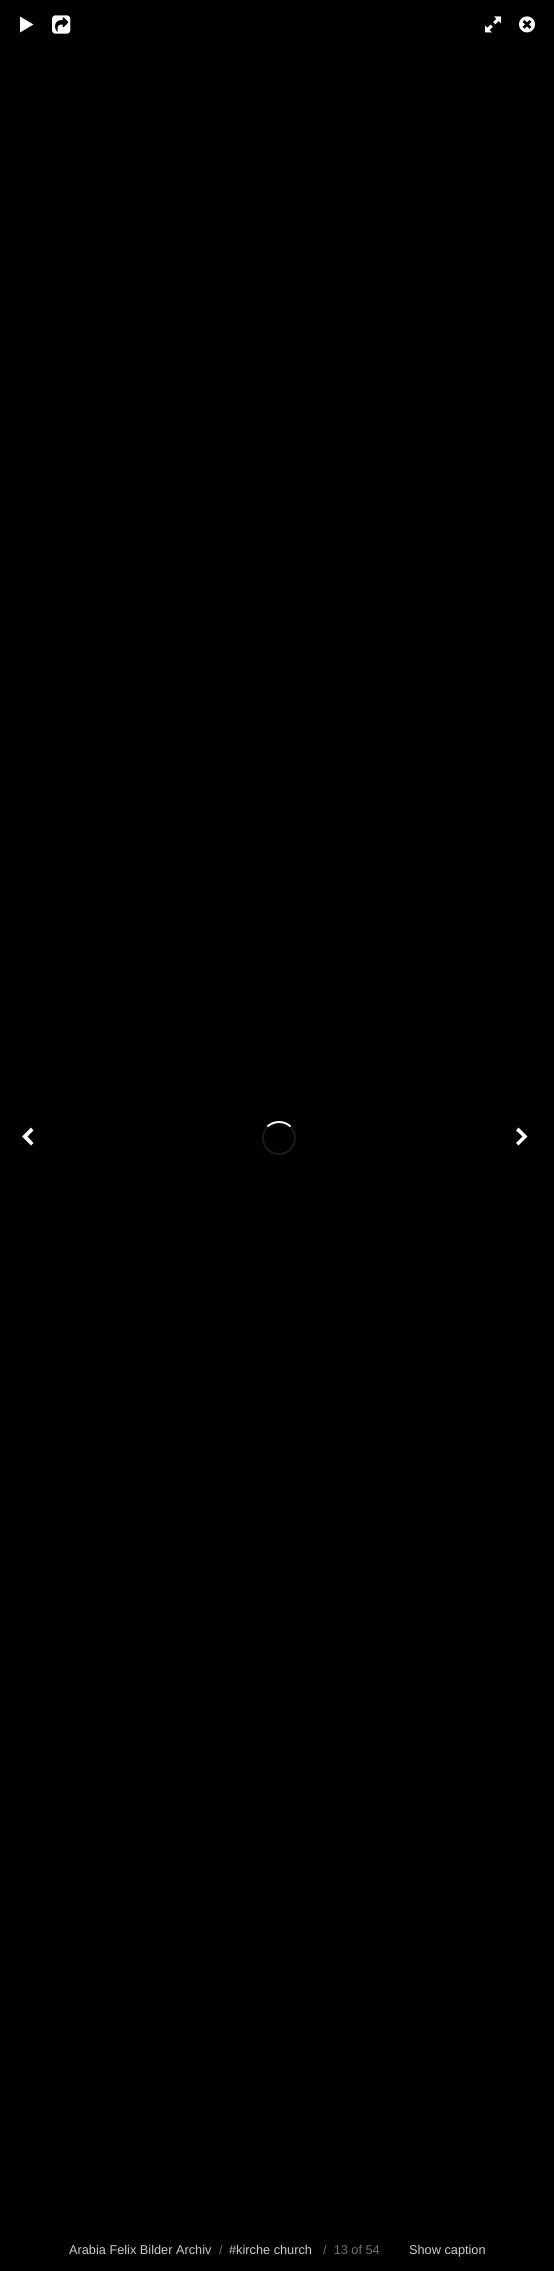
import math
import cairo

surface = cairo.ImageSurface(cairo.Format.RGB24, 554, 2271)
ctx = cairo.Context(surface)
options = cairo.FontOptions()
options.set_hint_metrics(cairo.HintMetrics.OFF)
options.set_hint_style(cairo.HintStyle.NONE)
ctx.set_font_options(options)
ctx.set_miter_limit(4)


def ink(r, g, b):
    ctx.set_source_rgb(r / 255, g / 255, b / 255)


def write(x, y, s, family, size, color, bold=False, italic=False):
    ctx.select_font_face(family, cairo.FontSlant.ITALIC if italic else cairo.FontSlant.NORMAL, cairo.FontWeight.BOLD if bold else cairo.FontWeight.NORMAL)
    ctx.set_font_size(size)
    ink(*color)
    ctx.move_to(x, y)
    ctx.show_text(s)


def paste(path, x, y, w, h):
    ctx.save()
    ctx.set_source_surface(cairo.ImageSurface.create_from_png(path), x, y)
    ctx.rectangle(x, y, w, h)
    ctx.fill()
    ctx.restore()


s1 = dict(family="Liberation Sans", size=12.75, color=(204, 204, 204))
s2 = dict(family="Liberation Sans", size=12.75, color=(112, 112, 112))

ink(0, 0, 0)
ctx.paint()
ink(255, 255, 255)
ctx.new_path()
ctx.move_to(20, 32.5)
ctx.line_to(20, 16.5)
ctx.line_to(33.5, 24.5)
ctx.close_path()
ctx.fill()
paste("pic1.png", 52, 15, 19, 19)
paste("pic2.png", 485, 16, 16, 17)
paste("pic3.png", 519, 16, 16, 17)
ctx.new_path()
ctx.move_to(22, 1136.5)
ctx.line_to(31, 1127.5)
ctx.line_to(33.5, 1130.5)
ctx.line_to(27.5, 1136.5)
ctx.line_to(33.5, 1143)
ctx.line_to(31, 1145.5)
ctx.close_path()
ctx.fill()
ctx.arc(279, 1138, 16, 0, 2 * math.pi)
ink(26, 26, 26)
ctx.stroke()
ctx.new_path()
ctx.move_to(267.5, 1126.5)
ctx.curve_to(274, 1120.5, 284, 1120.5, 290.5, 1126.5)
ink(255, 255, 255)
ctx.stroke()
ctx.new_path()
ctx.move_to(516, 1143)
ctx.line_to(522.5, 1136.5)
ctx.line_to(516, 1130.5)
ctx.line_to(518.5, 1127.5)
ctx.line_to(527.5, 1136.5)
ctx.line_to(518.5, 1145.5)
ctx.close_path()
ctx.fill()
write(69, 2254, "Arabia Felix Bilder Archiv", **s1)
write(219, 2254, "/", **s2)
write(229, 2254, "#kirche church", **s1)
write(323, 2254, "/  13 of 54", **s2)
write(409, 2254, "Show caption", **s1)
surface.write_to_png("screenshot.png")
